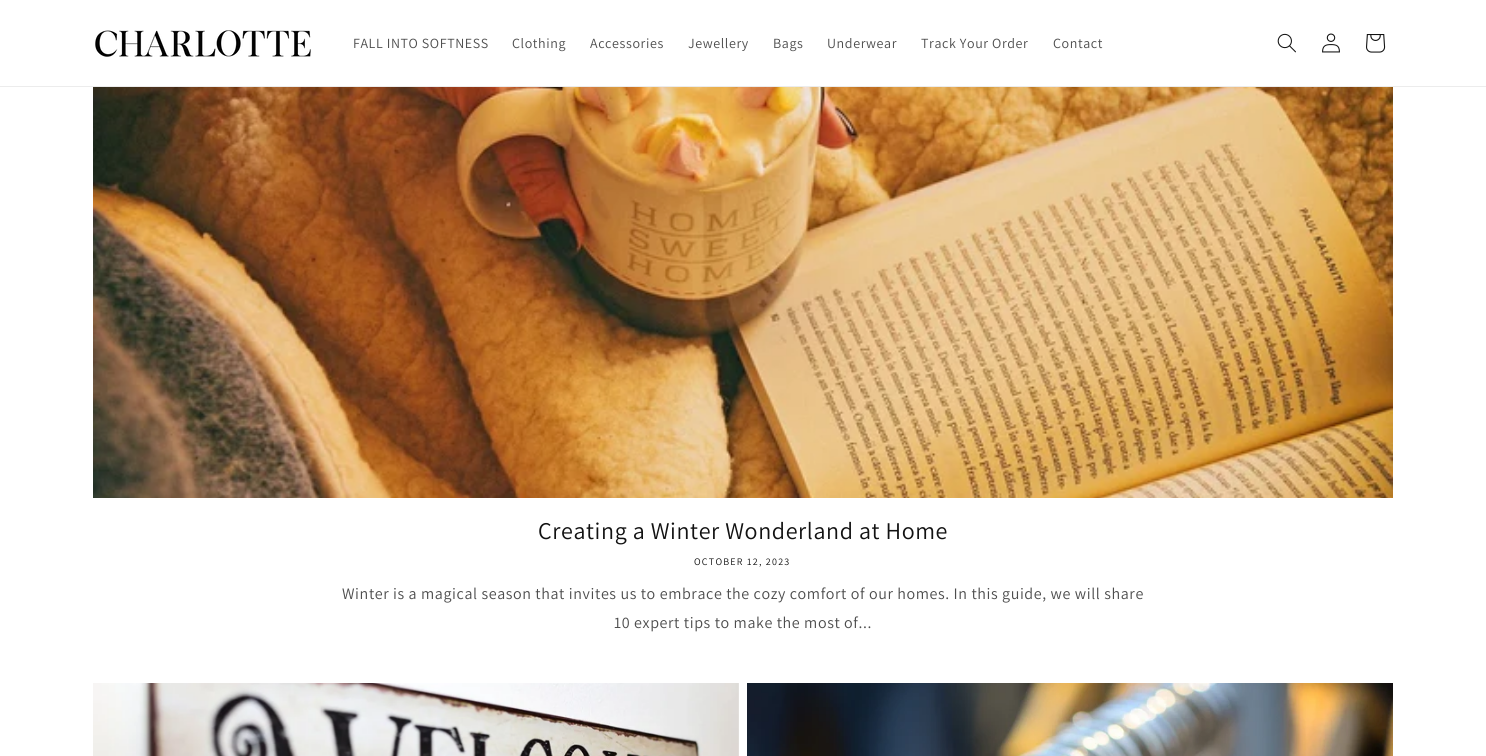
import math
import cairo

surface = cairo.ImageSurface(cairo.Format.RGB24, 1486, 756)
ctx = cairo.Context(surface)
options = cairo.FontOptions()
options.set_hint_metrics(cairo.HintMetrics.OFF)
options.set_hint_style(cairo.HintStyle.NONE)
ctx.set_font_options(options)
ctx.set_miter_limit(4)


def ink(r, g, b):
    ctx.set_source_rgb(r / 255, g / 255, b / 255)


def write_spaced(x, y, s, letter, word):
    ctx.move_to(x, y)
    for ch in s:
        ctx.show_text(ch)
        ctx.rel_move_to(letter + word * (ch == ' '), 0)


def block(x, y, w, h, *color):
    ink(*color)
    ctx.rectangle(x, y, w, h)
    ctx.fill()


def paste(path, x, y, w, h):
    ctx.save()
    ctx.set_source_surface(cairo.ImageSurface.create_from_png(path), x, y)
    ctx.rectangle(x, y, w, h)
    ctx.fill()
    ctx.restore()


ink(255, 255, 255)
ctx.paint()
block(0, 86, 1486, 1, 236, 236, 236)
paste("pic1.png", 95, 30, 216, 27)
ctx.select_font_face("Assistant")
ctx.set_font_size(14)
ink(77, 77, 77)
write_spaced(353, 48, "FALL INTO SOFTNESS", 0.6, 0)
write_spaced(512, 48, "Clothing", 0.6, 0)
write_spaced(590, 48, "Accessories", 0.6, 0)
write_spaced(688, 48, "Jewellery", 0.6, 0)
write_spaced(773, 48, "Bags", 0.6, 0)
write_spaced(827, 48, "Underwear", 0.6, 0)
write_spaced(921, 48, "Track Your Order", 0.6, 0)
write_spaced(1053, 48, "Contact", 0.6, 0)
paste("pic2.png", 1277, 33, 19, 20)
paste("pic3.png", 1322, 33, 18, 20)
paste("pic4.png", 1366, 34, 20, 19)
paste("pic5.png", 93, 87, 1300, 411)
ctx.set_font_size(24)
ink(18, 18, 18)
write_spaced(538, 539, "Creating a Winter Wonderland at Home", 0.6, 0)
ctx.set_font_size(10)
write_spaced(694, 565, "OCTOBER 12, 2023", 1.25, 0)
ctx.set_font_size(16)
ink(77, 77, 77)
write_spaced(342, 599, "Winter is a magical season that invites us to embrace the cozy comfort of our homes. In this guide, we will share", 0.6, 0)
write_spaced(614, 628, "10 expert tips to make the most of...", 0.6, 0)
paste("pic6.png", 93, 683, 646, 73)
paste("pic7.png", 747, 683, 646, 73)
surface.write_to_png("screenshot.png")
